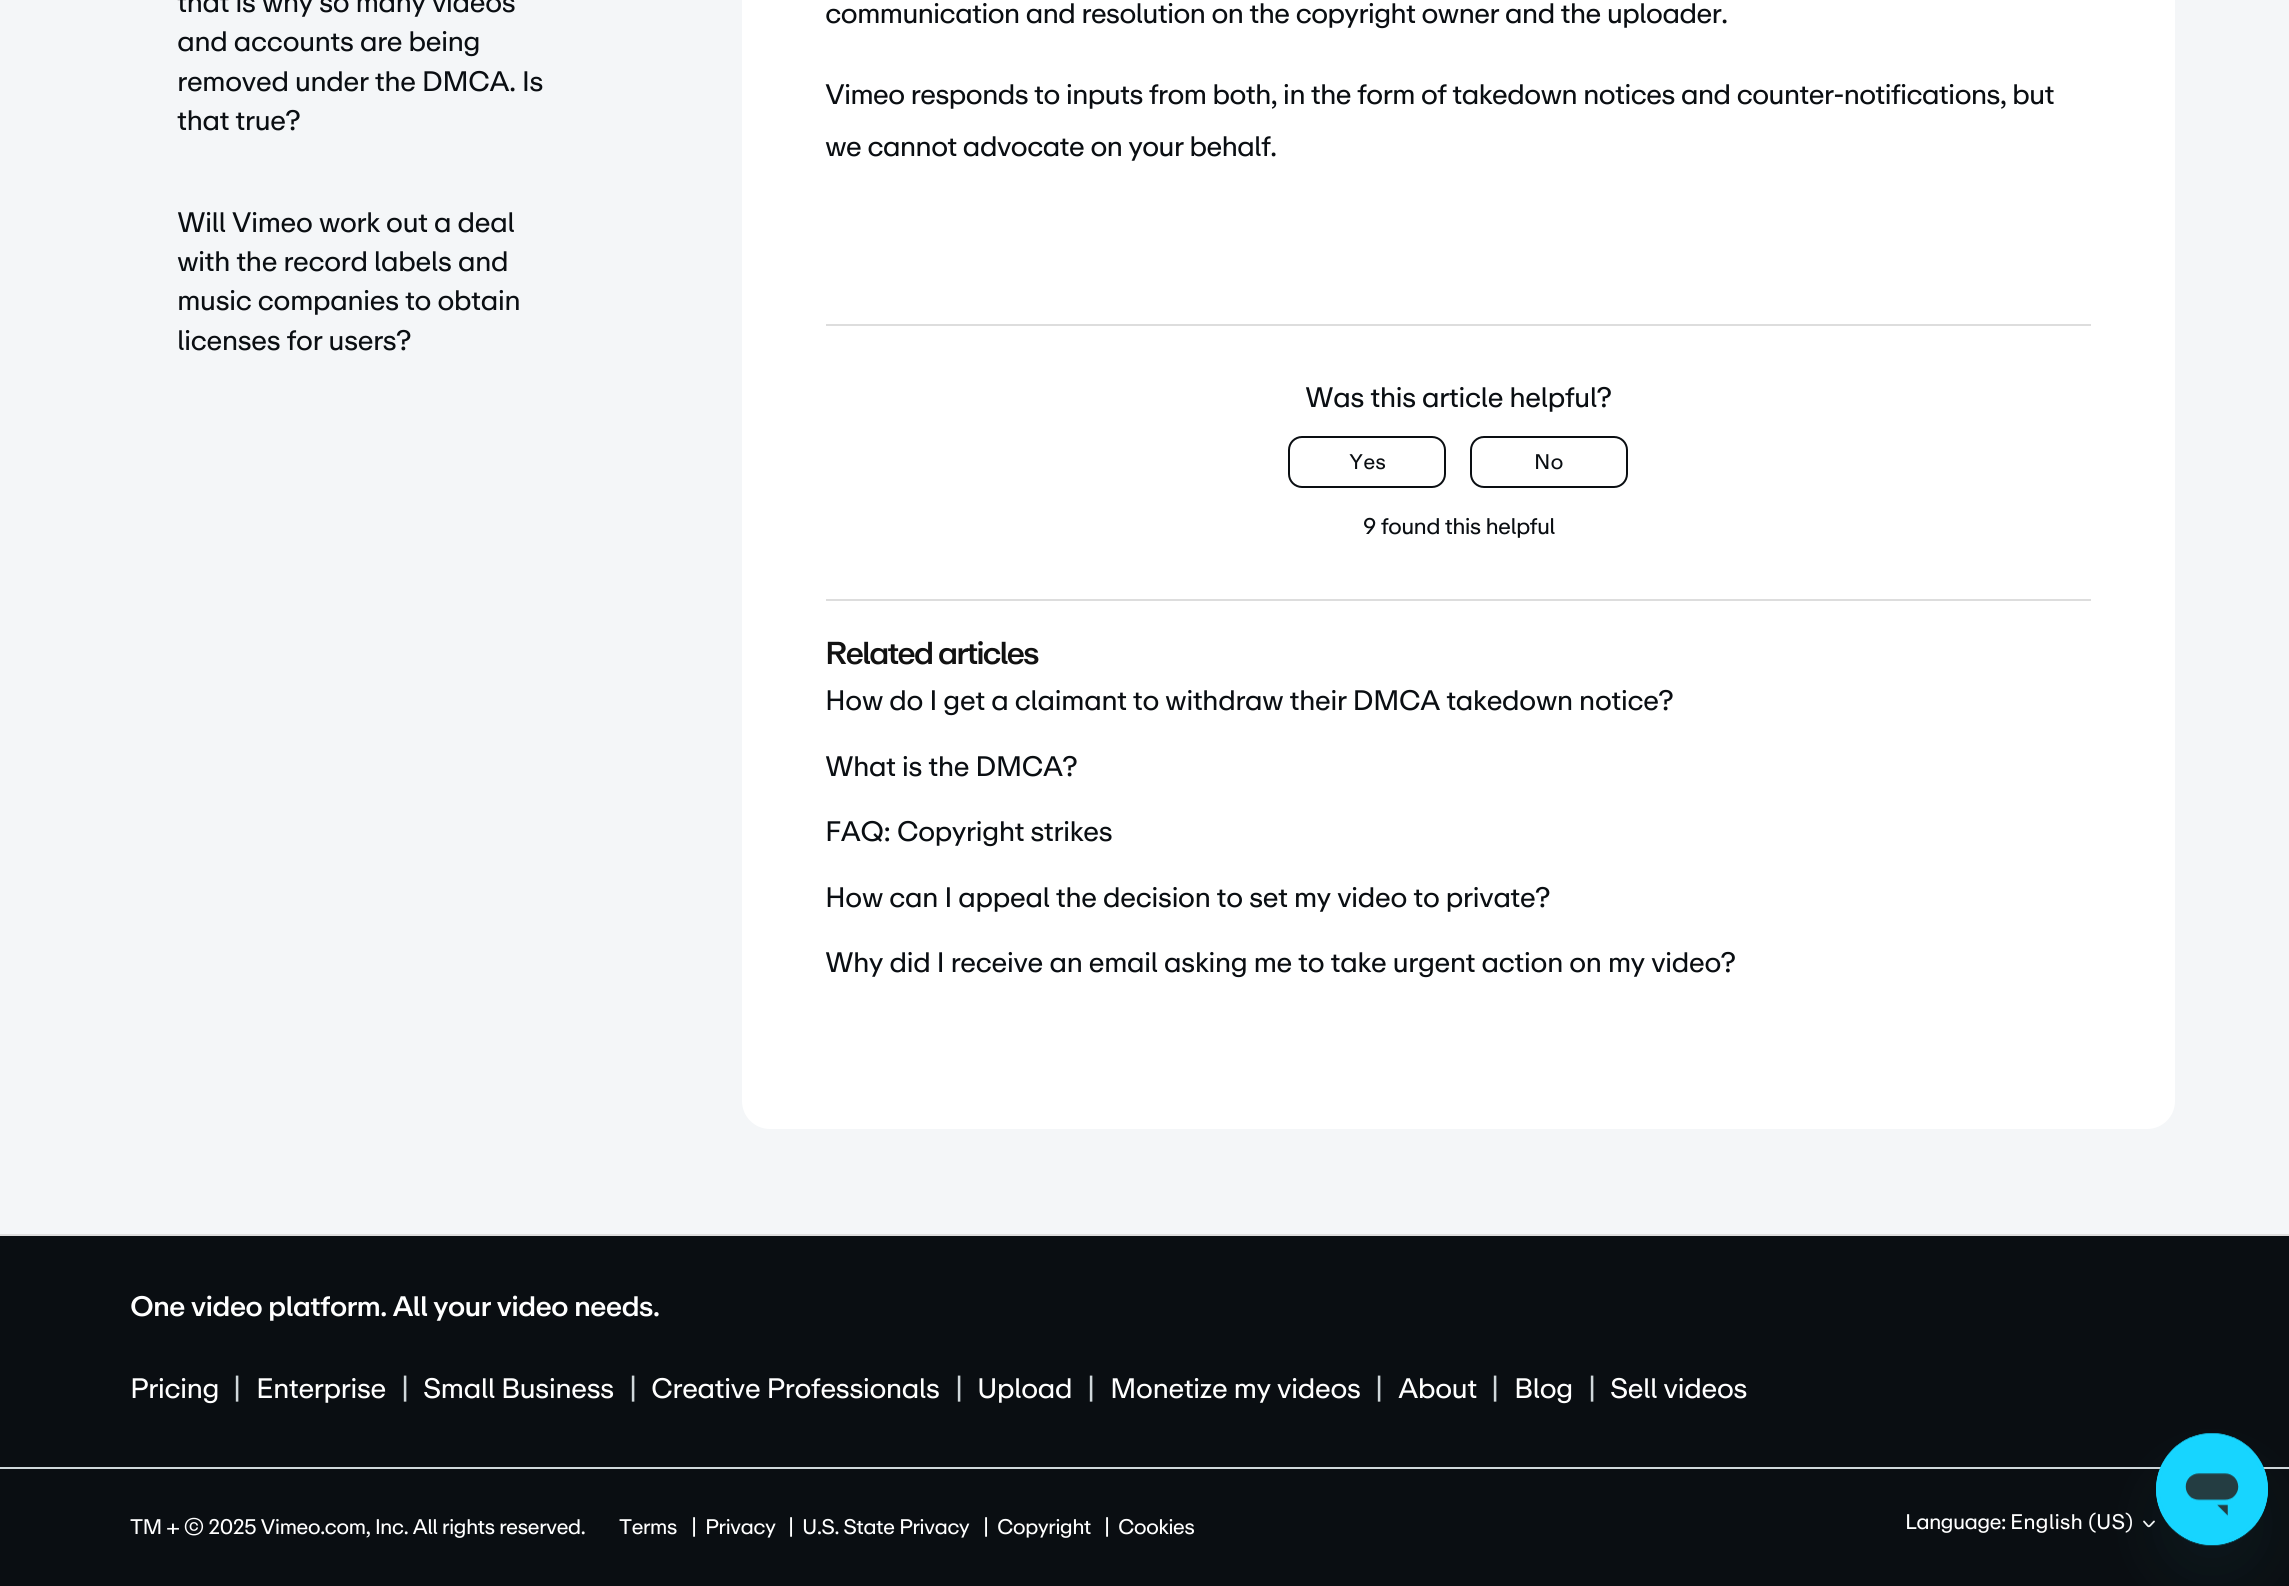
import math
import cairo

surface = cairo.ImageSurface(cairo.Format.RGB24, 2289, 1586)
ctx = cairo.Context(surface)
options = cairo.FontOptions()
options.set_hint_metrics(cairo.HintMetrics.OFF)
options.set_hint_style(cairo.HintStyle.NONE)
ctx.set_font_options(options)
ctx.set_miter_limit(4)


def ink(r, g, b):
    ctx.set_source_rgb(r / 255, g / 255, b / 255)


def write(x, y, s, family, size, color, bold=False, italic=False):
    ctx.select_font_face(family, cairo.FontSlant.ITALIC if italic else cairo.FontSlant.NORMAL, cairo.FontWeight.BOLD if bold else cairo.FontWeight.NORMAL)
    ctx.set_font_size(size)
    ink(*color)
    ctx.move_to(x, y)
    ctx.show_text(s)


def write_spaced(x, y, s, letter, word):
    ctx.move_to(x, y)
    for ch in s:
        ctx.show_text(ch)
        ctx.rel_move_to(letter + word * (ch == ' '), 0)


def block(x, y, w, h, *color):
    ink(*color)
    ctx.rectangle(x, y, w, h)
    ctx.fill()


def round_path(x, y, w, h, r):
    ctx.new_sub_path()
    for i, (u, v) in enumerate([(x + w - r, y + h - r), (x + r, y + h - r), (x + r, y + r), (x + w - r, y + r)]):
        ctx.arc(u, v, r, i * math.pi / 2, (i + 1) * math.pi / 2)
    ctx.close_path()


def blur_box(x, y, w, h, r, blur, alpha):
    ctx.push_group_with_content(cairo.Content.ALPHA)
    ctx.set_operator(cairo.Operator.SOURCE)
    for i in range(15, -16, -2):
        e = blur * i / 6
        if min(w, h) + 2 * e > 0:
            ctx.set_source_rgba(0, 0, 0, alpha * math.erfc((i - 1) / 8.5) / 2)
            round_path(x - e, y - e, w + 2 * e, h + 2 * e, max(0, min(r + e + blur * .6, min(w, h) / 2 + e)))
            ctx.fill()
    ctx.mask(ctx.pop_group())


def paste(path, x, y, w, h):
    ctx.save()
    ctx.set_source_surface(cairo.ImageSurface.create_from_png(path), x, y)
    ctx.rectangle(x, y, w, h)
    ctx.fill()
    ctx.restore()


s1 = dict(family="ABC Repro", size=21, color=(10, 14, 18))
s2 = dict(family="ABC Repro", size=21, color=(255, 255, 255))

ink(244, 246, 248)
ctx.paint()
ctx.select_font_face("ABC Repro")
ctx.set_font_size(28)
ink(10, 14, 18)
write_spaced(177, 12, "that is why so many videos", -0.73, 0)
write_spaced(177, 51, "and accounts are being", -0.73, 0)
write_spaced(177, 91, "removed under the DMCA. Is", -0.73, 0)
write_spaced(177, 130, "that true?", -0.73, 0)
write_spaced(177, 232, "Will Vimeo work out a deal", -0.73, 0)
write_spaced(177, 271, "with the record labels and", -0.73, 0)
write_spaced(177, 310, "music companies to obtain", -0.73, 0)
write_spaced(177, 350, "licenses for users?", -0.73, 0)
ink(255, 255, 255)
round_path(742, -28, 1433, 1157, 28)
ctx.fill()
ink(10, 14, 18)
write_spaced(825, 23, "communication and resolution on the copyright owner and the uploader.", -0.95, 0)
write_spaced(825, 104, "Vimeo responds to inputs from both, in the form of takedown notices and counter-notifications, but", -0.95, 0)
write_spaced(825, 156, "we cannot advocate on your behalf.", -0.95, 0)
block(826, 324, 1265, 2, 221, 221, 221)
ink(10, 14, 18)
write_spaced(1305, 407, "Was this article helpful?", -0.73, 0)
round_path(1289, 437, 156, 50, 13)
ctx.stroke()
write(1349, 469, "Yes", **s1)
round_path(1471, 437, 156, 50, 13)
ctx.stroke()
write(1534, 469, "No", **s1)
ctx.set_font_size(22.5)
write_spaced(1363, 534, "9 found this helpful", -0.73, 0)
block(826, 599, 1265, 2, 221, 221, 221)
ctx.select_font_face("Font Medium")
ctx.set_font_size(31.5)
ink(18, 18, 18)
write_spaced(825, 664, "Related articles", -2.1, 0)
ctx.select_font_face("ABC Repro")
ctx.set_font_size(28)
ink(10, 14, 18)
write_spaced(825, 710, "How do I get a claimant to withdraw their DMCA takedown notice?", -0.73, 0)
write_spaced(825, 776, "What is the DMCA?", -0.73, 0)
write_spaced(825, 841, "FAQ: Copyright strikes", -0.73, 0)
write_spaced(825, 907, "How can I appeal the decision to set my video to private?", -0.73, 0)
write_spaced(825, 972, "Why did I receive an email asking me to take urgent action on my video?", -0.73, 0)
block(0, 1236, 2289, 350, 10, 14, 18)
block(0, 1234, 2289, 2, 221, 221, 221)
ctx.select_font_face("Font Medium")
ink(255, 255, 255)
write_spaced(130, 1316, "One video platform. All your video needs.", -0.85, 0)
ctx.select_font_face("ABC Repro")
write_spaced(130, 1398, "Pricing", -0.73, 0)
ink(208, 216, 219)
write_spaced(233, 1398, "|", -0.73, 0)
ink(255, 255, 255)
write_spaced(256, 1398, "Enterprise", -0.73, 0)
ink(208, 216, 219)
write_spaced(401, 1398, "|", -0.73, 0)
ink(255, 255, 255)
write_spaced(423, 1398, "Small Business", -0.73, 0)
ink(208, 216, 219)
write_spaced(629, 1398, "|", -0.73, 0)
ink(255, 255, 255)
write_spaced(651, 1398, "Creative Professionals", -0.73, 0)
ink(208, 216, 219)
write_spaced(955, 1398, "|", -0.73, 0)
ink(255, 255, 255)
write_spaced(977, 1398, "Upload", -0.73, 0)
ink(208, 216, 219)
write_spaced(1087, 1398, "|", -0.73, 0)
ink(255, 255, 255)
write_spaced(1110, 1398, "Monetize my videos", -0.73, 0)
ink(208, 216, 219)
write_spaced(1375, 1398, "|", -0.73, 0)
ink(255, 255, 255)
write_spaced(1398, 1398, "About", -0.73, 0)
ink(208, 216, 219)
write_spaced(1491, 1398, "|", -0.73, 0)
ink(255, 255, 255)
write_spaced(1514, 1398, "Blog", -0.73, 0)
ink(208, 216, 219)
write_spaced(1588, 1398, "|", -0.73, 0)
ink(255, 255, 255)
write_spaced(1610, 1398, "Sell videos", -0.73, 0)
block(0, 1467, 2289, 2, 208, 216, 219)
ctx.set_font_size(21)
ink(255, 255, 255)
write_spaced(130, 1534, "TM + © 2025 Vimeo.com, Inc. All rights reserved.", -0.73, 0)
write_spaced(619, 1534, "Terms", -0.73, 0)
write_spaced(691, 1534, "|", -0.73, 0)
write_spaced(705, 1534, "Privacy", -0.73, 0)
write_spaced(788, 1534, "|", -0.73, 0)
write_spaced(802, 1534, "U.S. State Privacy", -0.73, 0)
write_spaced(983, 1534, "|", -0.73, 0)
write_spaced(997, 1534, "Copyright", -0.73, 0)
write_spaced(1104, 1534, "|", -0.73, 0)
write_spaced(1118, 1534, "Cookies", -0.73, 0)
write_spaced(1905, 1529, "Language:", -0.73, 0)
write(2010, 1529, "English (US)", **s2)
ctx.new_path()
ctx.move_to(2144, 1521.5)
ctx.curve_to(2150, 1528, 2147.5, 1528, 2154, 1521.5)
ctx.set_line_width(1.8)
ctx.set_line_cap(cairo.LineCap.ROUND)
ctx.stroke()
ink(23, 73, 77)
blur_box(2156, 1468, 112, 112, 56, 26, 0.15)
paste("pic1.png", 2156, 1433, 112, 113)
surface.write_to_png("screenshot.png")
